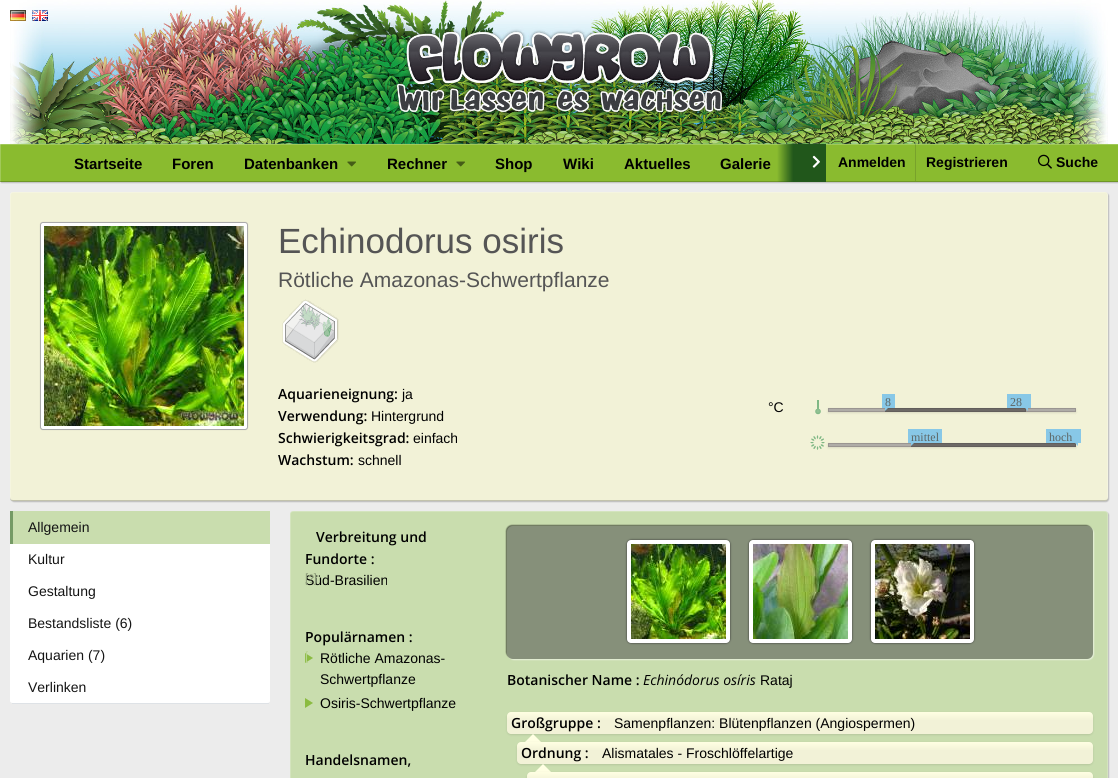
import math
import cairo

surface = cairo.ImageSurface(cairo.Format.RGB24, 1118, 778)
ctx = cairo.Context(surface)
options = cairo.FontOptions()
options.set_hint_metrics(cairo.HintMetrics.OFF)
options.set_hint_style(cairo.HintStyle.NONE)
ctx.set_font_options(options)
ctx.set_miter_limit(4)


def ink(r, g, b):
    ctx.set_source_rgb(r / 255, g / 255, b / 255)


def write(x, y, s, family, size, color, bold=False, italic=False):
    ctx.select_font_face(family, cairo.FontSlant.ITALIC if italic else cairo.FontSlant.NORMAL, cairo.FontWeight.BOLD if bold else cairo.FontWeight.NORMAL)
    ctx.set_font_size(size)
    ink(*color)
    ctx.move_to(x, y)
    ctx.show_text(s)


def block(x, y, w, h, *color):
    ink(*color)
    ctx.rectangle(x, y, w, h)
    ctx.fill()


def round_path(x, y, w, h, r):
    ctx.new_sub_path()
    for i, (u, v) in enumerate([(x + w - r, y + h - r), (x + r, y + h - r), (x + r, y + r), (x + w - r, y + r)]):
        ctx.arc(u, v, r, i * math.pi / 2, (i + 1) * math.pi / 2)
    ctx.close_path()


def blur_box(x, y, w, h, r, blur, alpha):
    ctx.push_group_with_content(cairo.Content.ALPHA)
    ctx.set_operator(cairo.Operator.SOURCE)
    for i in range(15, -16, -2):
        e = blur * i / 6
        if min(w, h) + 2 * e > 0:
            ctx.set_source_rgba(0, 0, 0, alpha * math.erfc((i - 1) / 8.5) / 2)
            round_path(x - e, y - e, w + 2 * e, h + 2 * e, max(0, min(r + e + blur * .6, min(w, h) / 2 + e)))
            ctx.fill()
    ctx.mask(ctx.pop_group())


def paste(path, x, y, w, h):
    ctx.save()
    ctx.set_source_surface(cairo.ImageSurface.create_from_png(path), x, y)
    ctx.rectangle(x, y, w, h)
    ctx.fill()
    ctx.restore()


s1 = dict(family="Liberation Sans", size=15, color=(0, 0, 0), bold=True)
s2 = dict(family="Liberation Sans", size=14, color=(0, 0, 0), bold=True)
s3 = dict(family="Liberation Sans", size=35, color=(85, 85, 85))
s4 = dict(family="Liberation Sans", size=21, color=(85, 85, 85))
s5 = dict(family="Open Sans SemiBold", size=14, color=(0, 0, 0))
s6 = dict(family="Liberation Sans", size=14, color=(0, 0, 0))
s7 = dict(family="Liberation Serif", size=12, color=(93, 102, 101))
s8 = dict(family="Liberation Sans", size=14, color=(20, 20, 20))
s9 = dict(family="Roboto", size=12, color=(142, 157, 123))
s10 = dict(family="Roboto", size=12, color=(183, 211, 143))
s11 = dict(family="Open Sans", size=14, color=(0, 0, 0), italic=True)

ink(255, 255, 255)
ctx.paint()
paste("pic3.png", 10, 0, 1098, 144)
paste("pic1.png", 10, 10, 16, 11)
paste("pic2.png", 32, 10, 16, 11)
block(0, 182, 1118, 596, 236, 236, 236)
ink(0, 0, 0)
blur_box(1, 145, 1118, 38, 0, 0.5, 0.2)
block(1, 145, 1117, 36, 138, 187, 47)
block(915, 144, 1, 37, 120, 162, 43)
block(0, 181, 1118, 1, 110, 150, 38)
block(0, 144, 1118, 1, 161, 201, 89)
block(915, 144, 1, 1, 140, 174, 79)
block(0, 144, 1, 38, 161, 201, 89)
block(0, 181, 1, 1, 129, 161, 71)
block(0, 144, 1, 1, 180, 212, 122)
write(74, 169, "Startseite", **s1)
write(172, 169, "Foren", **s1)
write(244, 169, "Datenbanken", **s1)
paste("pic4.png", 347, 161, 9, 6)
write(387, 169, "Rechner", **s1)
paste("pic4.png", 456, 161, 9, 6)
write(495, 169, "Shop", **s1)
write(563, 169, "Wiki", **s1)
write(624, 169, "Aktuelles", **s1)
write(720, 169, "Galerie", **s1)
gradient = cairo.LinearGradient(777, 163, 826, 163)
gradient.add_color_stop_rgba(0, 0.129, 0.341, 0.106, 0)
gradient.add_color_stop_rgba(0.33, 0.129, 0.341, 0.106, 1)
ctx.set_source(gradient)
ctx.rectangle(777, 144, 49, 38)
ctx.fill()
paste("pic5.png", 812, 155, 8, 13)
write(838, 167, "Anmelden", **s2)
write(926, 167, "Registrieren", **s2)
paste("pic6.png", 1038, 154, 14, 15)
write(1056, 167, "Suche", **s2)
ink(0, 0, 0)
blur_box(11, 193, 1098, 309, 3, 0.5, 0.2)
ink(242, 242, 215)
round_path(10, 192, 1098, 309, 3)
ctx.fill()
ctx.set_source_rgba(1, 1, 1, 0.2)
ctx.new_path()
ctx.move_to(1104, 501)
ctx.line_to(1107, 500)
ctx.line_to(1108, 499)
ctx.line_to(1108, 195)
ctx.curve_to(1108, 193, 1106, 192, 1104, 192)
ctx.curve_to(1106, 192, 1107, 193, 1107, 195)
ctx.line_to(1107, 498)
ctx.curve_to(1107, 500, 1106, 501, 1104, 501)
ctx.close_path()
ctx.fill()
ctx.new_path()
ctx.move_to(13, 192)
ctx.curve_to(11, 192, 10, 193, 10, 195)
ctx.line_to(10, 498)
ctx.curve_to(10, 500, 11, 501, 13, 501)
ctx.line_to(14, 501)
ctx.curve_to(12, 501, 11, 500, 11, 498)
ctx.line_to(11, 195)
ctx.curve_to(11, 193, 12, 192, 14, 192)
ctx.close_path()
ctx.fill()
ctx.new_path()
ctx.move_to(13, 193)
ctx.line_to(1105, 193)
ctx.curve_to(1107, 193, 1108, 194, 1108, 196)
ctx.line_to(1108, 195)
ctx.curve_to(1108, 193, 1107, 192, 1105, 192)
ctx.line_to(13, 192)
ctx.curve_to(11, 192, 10, 193, 10, 195)
ctx.line_to(10, 196)
ctx.curve_to(10, 194, 11, 193, 13, 193)
ctx.close_path()
ctx.fill()
ctx.set_source_rgba(0, 0, 0, 0.2)
ctx.new_path()
ctx.move_to(10, 497)
ctx.line_to(10, 498)
ctx.curve_to(10, 500, 11, 501, 13, 501)
ctx.line_to(1105, 501)
ctx.curve_to(1107, 501, 1108, 500, 1108, 498)
ctx.line_to(1108, 497)
ctx.curve_to(1108, 499, 1107, 500, 1105, 500)
ctx.line_to(13, 500)
ctx.curve_to(11, 500, 10, 499, 10, 497)
ctx.close_path()
ctx.fill()
ink(0, 0, 0)
blur_box(40, 222, 208, 208, 3, 0.5, 0.1)
ink(255, 255, 255)
round_path(40.5, 222.5, 207, 207, 2.5)
ctx.fill_preserve()
ink(170, 170, 170)
ctx.set_line_width(1)
ctx.stroke()
paste("pic7.png", 44, 226, 200, 200)
write(278, 253, "Echinodorus osiris", **s3)
write(278, 287, "Rötliche Amazonas-Schwertpflanze", **s4)
paste("pic8.png", 282, 299, 57, 64)
write(278, 399, "Aquarieneignung:", **s5)
write(402, 399, "ja", **s6)
write(278, 421, "Verwendung:", **s5)
write(371, 421, "Hintergrund", **s6)
write(768, 412, "°C", **s6)
paste("pic9.png", 815, 400, 6, 15)
ink(0, 0, 0)
blur_box(828, 409, 248, 4, 0, 1, 0.1)
block(882, 394, 13, 14, 136, 200, 231)
write(885, 406, "8", **s7)
ink(175, 172, 167)
ctx.rectangle(828.5, 408.5, 247, 3)
ctx.fill_preserve()
ink(154, 149, 145)
ctx.stroke()
ink(109, 105, 102)
ctx.rectangle(885.5, 408.5, 140, 3)
ctx.fill_preserve()
ink(98, 94, 91)
ctx.stroke()
ink(136, 200, 231)
ctx.new_path()
ctx.move_to(885, 407)
ctx.line_to(889, 407)
ctx.line_to(885, 411)
ctx.close_path()
ctx.fill()
block(1007, 394, 24, 14, 136, 200, 231)
write(1010, 406, "28", **s7)
ink(136, 200, 231)
ctx.new_path()
ctx.move_to(1024, 407)
ctx.line_to(1028, 407)
ctx.line_to(1028, 411)
ctx.close_path()
ctx.fill()
paste("pic10.png", 810, 435, 15, 15)
ink(0, 0, 0)
blur_box(828, 444, 248, 4, 0, 1, 0.1)
block(908, 429, 34, 14, 136, 200, 231)
write(911, 441, "mittel", **s7)
block(828, 444, 83, 2, 175, 172, 167)
ctx.rectangle(828.5, 443.5, 247, 3)
ink(154, 149, 145)
ctx.stroke()
ink(109, 105, 102)
ctx.rectangle(911.5, 443.5, 164, 3)
ctx.fill_preserve()
ink(98, 94, 91)
ctx.stroke()
ink(136, 200, 231)
ctx.new_path()
ctx.move_to(911, 442)
ctx.line_to(915, 442)
ctx.line_to(911, 446)
ctx.close_path()
ctx.fill()
block(1046, 429, 35, 14, 136, 200, 231)
write(1049, 441, "hoch", **s7)
ink(136, 200, 231)
ctx.new_path()
ctx.move_to(1074, 442)
ctx.line_to(1078, 442)
ctx.line_to(1078, 446)
ctx.close_path()
ctx.fill()
write(278, 443, "Schwierigkeitsgrad:", **s5)
write(413, 443, "einfach", **s6)
write(278, 465, "Wachstum:", **s5)
write(358, 465, "schnell", **s6)
ink(255, 255, 255)
ctx.new_path()
ctx.move_to(13, 511)
ctx.line_to(267, 511)
ctx.curve_to(269, 511, 270, 512, 270, 514)
ctx.line_to(270, 701)
ctx.curve_to(270, 702, 269, 703, 267, 703)
ctx.line_to(13, 703)
ctx.curve_to(11, 703, 10, 702, 10, 701)
ctx.line_to(10, 514)
ctx.curve_to(10, 512, 11, 511, 13, 511)
ctx.close_path()
ctx.fill()
block(12, 703, 257, 1, 222, 226, 230)
block(13, 511, 257, 33, 201, 221, 174)
block(10, 511, 3, 33, 117, 154, 101)
write(28, 532, "Allgemein", **s8)
write(28, 564, "Kultur", **s8)
write(28, 596, "Gestaltung", **s8)
write(28, 628, "Bestandsliste (6)", **s8)
write(28, 660, "Aquarien (7)", **s8)
write(28, 692, "Verlinken", **s8)
ink(0, 0, 0)
blur_box(291, 512, 818, 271, 3, 0.5, 0.2)
ink(201, 221, 174)
round_path(290, 511, 818, 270, 3)
ctx.fill()
ctx.set_source_rgba(1, 1, 1, 0.2)
ctx.new_path()
ctx.move_to(1104, 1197)
ctx.line_to(1105, 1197)
ctx.curve_to(1107, 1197, 1108, 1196, 1108, 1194)
ctx.line_to(1108, 514)
ctx.curve_to(1108, 512, 1107, 511, 1105, 511)
ctx.line_to(1104, 511)
ctx.curve_to(1106, 511, 1107, 512, 1107, 514)
ctx.line_to(1107, 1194)
ctx.curve_to(1107, 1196, 1106, 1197, 1104, 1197)
ctx.close_path()
ctx.fill()
ctx.new_path()
ctx.move_to(293, 511)
ctx.curve_to(291, 511, 290, 512, 290, 514)
ctx.line_to(290, 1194)
ctx.curve_to(290, 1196, 291, 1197, 293, 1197)
ctx.line_to(294, 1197)
ctx.curve_to(292, 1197, 291, 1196, 291, 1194)
ctx.line_to(291, 514)
ctx.curve_to(291, 512, 292, 511, 294, 511)
ctx.close_path()
ctx.fill()
ctx.new_path()
ctx.move_to(293, 512)
ctx.line_to(1105, 512)
ctx.curve_to(1107, 512, 1108, 513, 1108, 515)
ctx.curve_to(1108, 513, 1107, 511, 1105, 511)
ctx.line_to(293, 511)
ctx.curve_to(291, 511, 290, 513, 290, 515)
ctx.curve_to(290, 513, 291, 512, 293, 512)
ctx.close_path()
ctx.fill()
write(316, 542, "Verbreitung und", **s5)
write(305, 564, "Fundorte :", **s5)
write(305, 585, "Süd-Brasilien", **s6)
write(305, 583, "[?]", **s9)
write(305, 642, "Populärnamen :", **s5)
ink(139, 187, 65)
ctx.new_path()
ctx.move_to(305, 663)
ctx.line_to(305, 653)
ctx.line_to(313, 658)
ctx.close_path()
ctx.fill()
write(305, 661, "[", **s10)
write(320, 663, "Rötliche Amazonas-", **s6)
write(320, 684, "Schwertpflanze", **s6)
ink(139, 187, 65)
ctx.new_path()
ctx.move_to(305, 708)
ctx.line_to(305, 698)
ctx.line_to(313, 703)
ctx.close_path()
ctx.fill()
write(320, 708, "Osiris-Schwertpflanze", **s6)
write(305, 765, "Handelsnamen,", **s5)
ink(0, 0, 0)
blur_box(506, 525, 586, 133, 6, 0.5, 0.5)
ink(255, 255, 255)
blur_box(508, 527, 586, 133, 6, 0.5, 0.5)
ink(134, 144, 122)
round_path(507, 526, 586, 133, 6)
ctx.fill()
ink(48, 48, 48)
blur_box(627, 540, 103, 103, 4, 1, 1)
ink(255, 255, 255)
round_path(627, 540, 103, 103, 4)
ctx.fill()
paste("pic11.png", 631, 544, 95, 95)
ink(48, 48, 48)
blur_box(749, 540, 103, 103, 4, 1, 1)
ink(255, 255, 255)
round_path(749, 540, 103, 103, 4)
ctx.fill()
paste("pic12.png", 753, 544, 95, 95)
ink(48, 48, 48)
blur_box(871, 540, 103, 103, 4, 1, 1)
ink(255, 255, 255)
round_path(871, 540, 103, 103, 4)
ctx.fill()
paste("pic13.png", 875, 544, 95, 95)
write(507, 685, "Botanischer Name :", **s5)
write(643, 685, "Echinódorus osíris", **s11)
write(760, 685, "Rataj", **s6)
ink(0, 0, 0)
blur_box(507, 713, 586, 22, 4, 1, 0.1)
gradient = cairo.LinearGradient(800, 712, 800, 734)
gradient.add_color_stop_rgba(0, 1, 1, 0.89, 1)
gradient.add_color_stop_rgba(0.4, 0.949, 0.949, 0.843, 1)
ctx.set_source(gradient)
round_path(507, 712, 586, 22, 4)
ctx.fill()
write(511, 728, "Großgruppe :", **s5)
write(614, 728, "Samenpflanzen: Blütenpflanzen (Angiospermen)", **s6)
ink(255, 255, 227)
ctx.new_path()
ctx.move_to(541, 742)
ctx.line_to(525, 742)
ctx.line_to(533, 734)
ctx.close_path()
ctx.fill()
ink(0, 0, 0)
blur_box(517, 743, 576, 22, 4, 1, 0.1)
gradient = cairo.LinearGradient(805, 742, 805, 764)
gradient.add_color_stop_rgba(0, 1, 1, 0.89, 1)
gradient.add_color_stop_rgba(0.4, 0.949, 0.949, 0.843, 1)
ctx.set_source(gradient)
round_path(517, 742, 576, 22, 4)
ctx.fill()
write(521, 758, "Ordnung :", **s5)
write(602, 758, "Alismatales - Froschlöffelartige", **s6)
ink(255, 255, 227)
ctx.new_path()
ctx.move_to(551, 772)
ctx.line_to(535, 772)
ctx.line_to(543, 764)
ctx.close_path()
ctx.fill()
ink(0, 0, 0)
blur_box(527, 773, 566, 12, 4, 1, 0.1)
gradient = cairo.LinearGradient(810, 772, 810, 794)
gradient.add_color_stop_rgba(0, 1, 1, 0.89, 1)
gradient.add_color_stop_rgba(0.4, 0.949, 0.949, 0.843, 1)
ctx.set_source(gradient)
round_path(527, 772, 566, 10, 4)
ctx.fill()
surface.write_to_png("screenshot.png")
